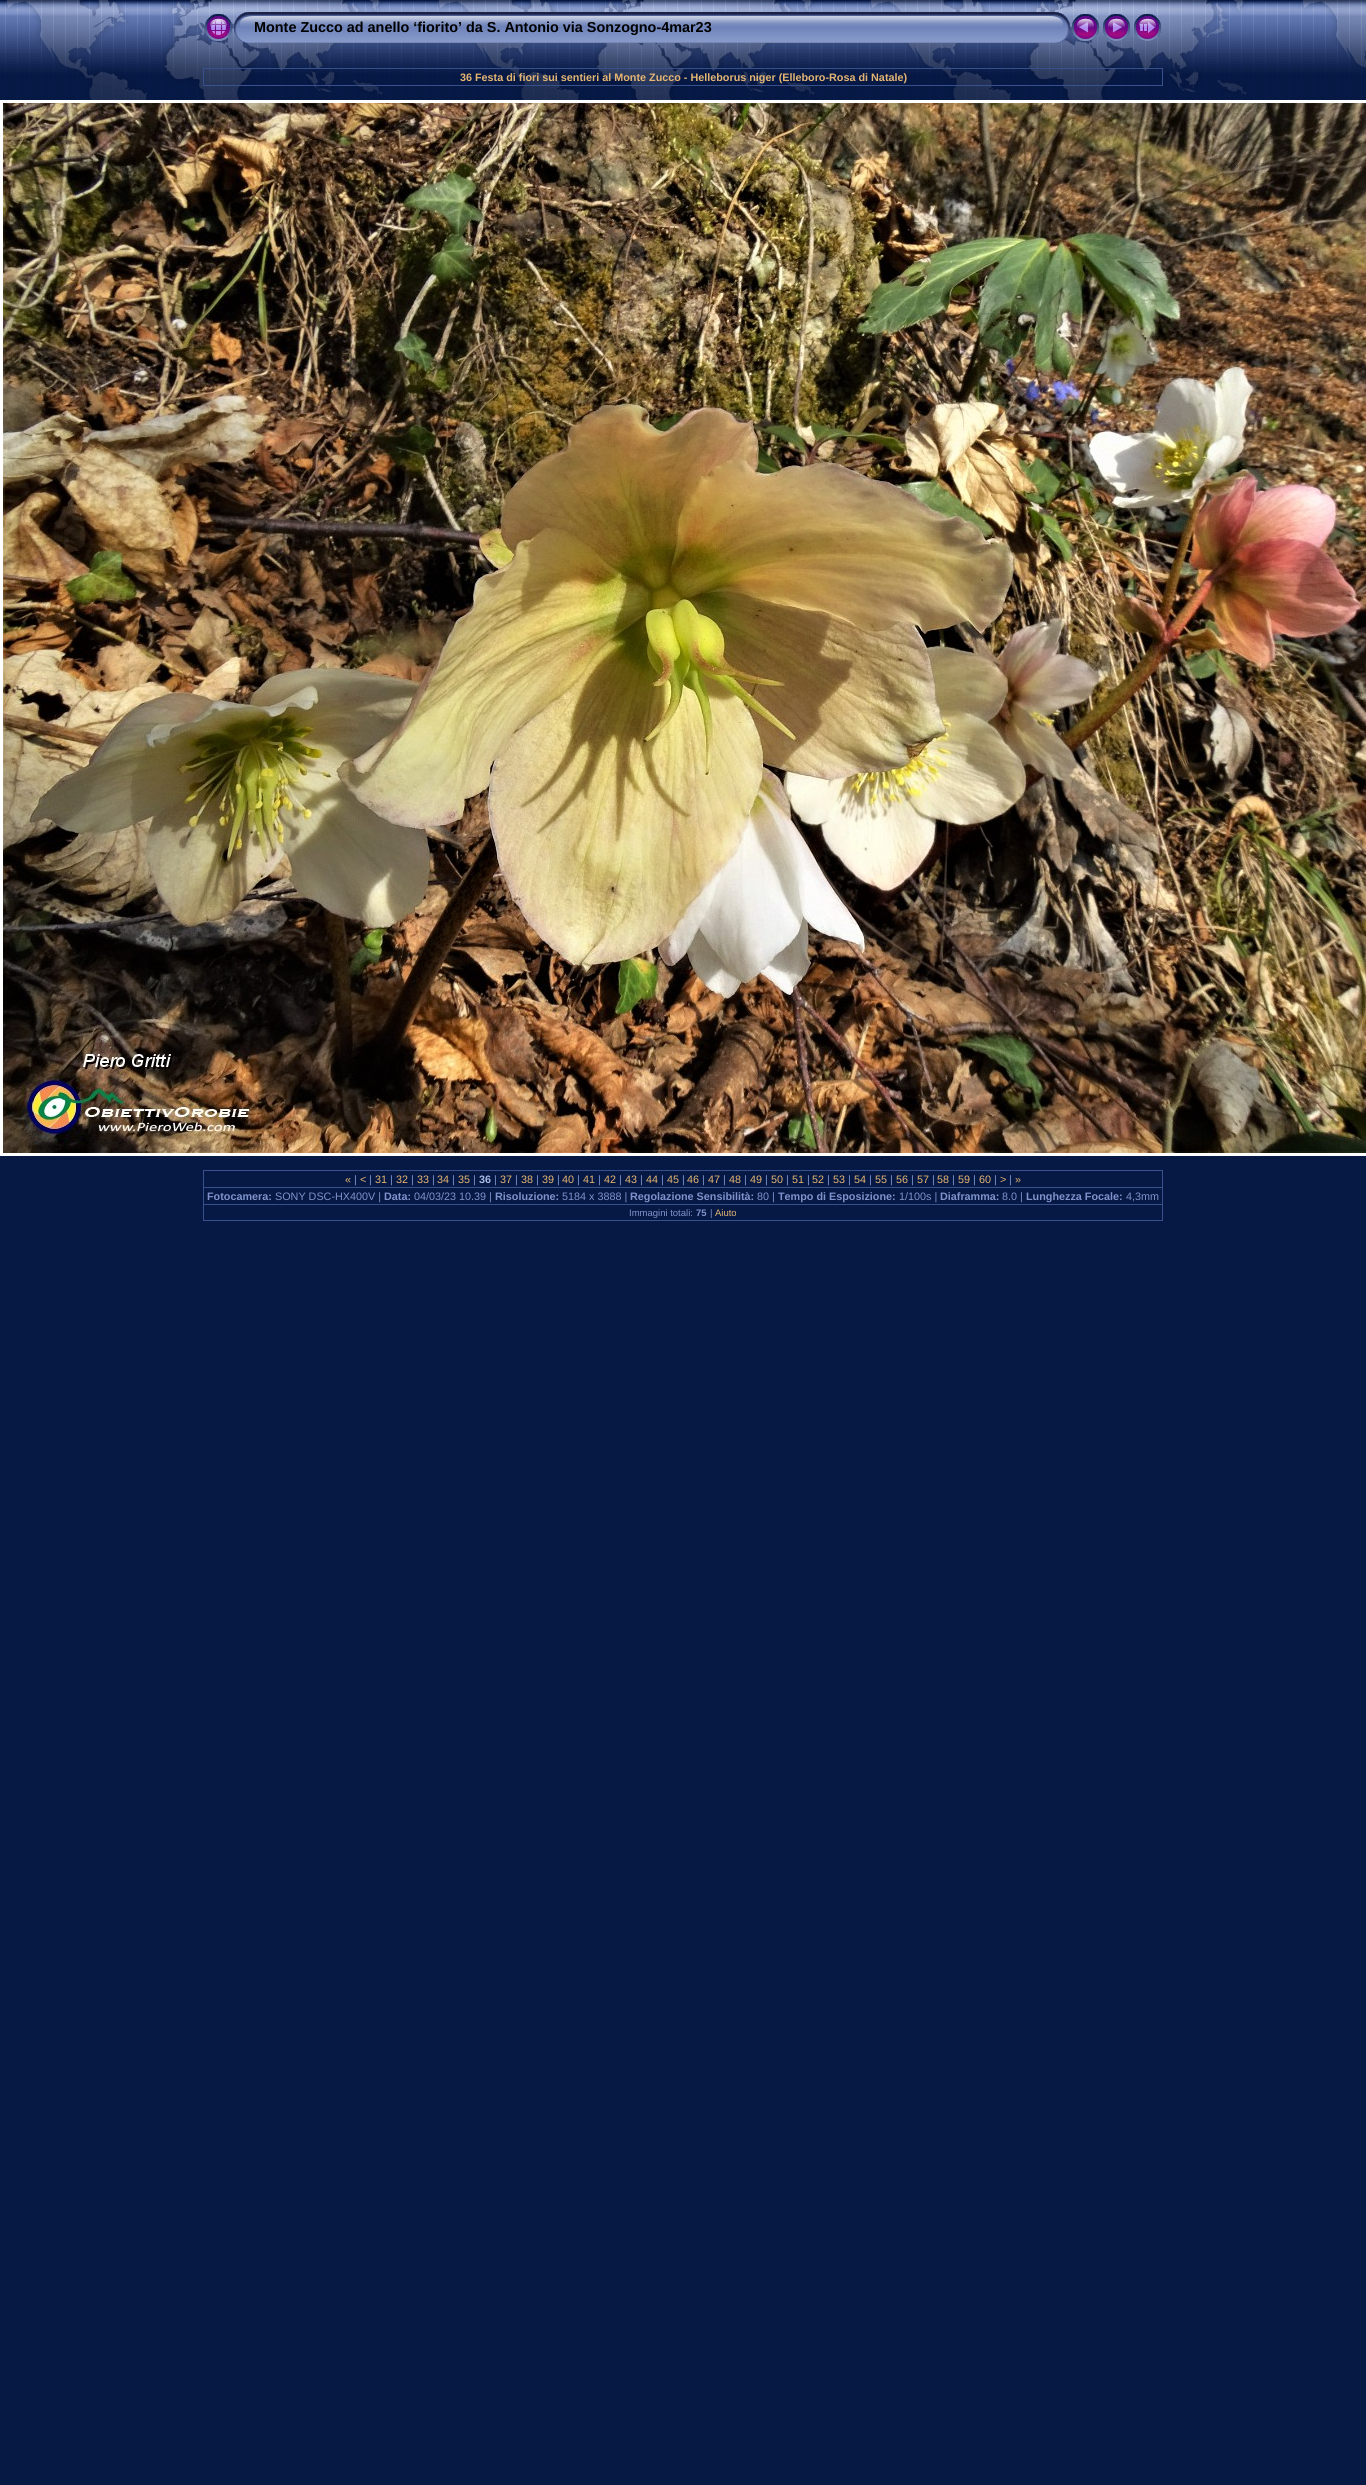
import math
import cairo

surface = cairo.ImageSurface(cairo.Format.RGB24, 1366, 2485)
ctx = cairo.Context(surface)
options = cairo.FontOptions()
options.set_hint_metrics(cairo.HintMetrics.OFF)
options.set_hint_style(cairo.HintStyle.NONE)
ctx.set_font_options(options)
ctx.set_miter_limit(4)


def ink(r, g, b):
    ctx.set_source_rgb(r / 255, g / 255, b / 255)


def write(x, y, s, family, size, color, bold=False, italic=False):
    ctx.select_font_face(family, cairo.FontSlant.ITALIC if italic else cairo.FontSlant.NORMAL, cairo.FontWeight.BOLD if bold else cairo.FontWeight.NORMAL)
    ctx.set_font_size(size)
    ink(*color)
    ctx.move_to(x, y)
    ctx.show_text(s)


def block(x, y, w, h, *color):
    ink(*color)
    ctx.rectangle(x, y, w, h)
    ctx.fill()


def paste(path, x, y, w, h):
    ctx.save()
    ctx.set_source_surface(cairo.ImageSurface.create_from_png(path), x, y)
    ctx.rectangle(x, y, w, h)
    ctx.fill()
    ctx.restore()


s1 = dict(family="Liberation Sans", size=14.4, color=(0, 0, 0), bold=True)
s2 = dict(family="Liberation Sans", size=10.8, color=(229, 182, 115), bold=True)
s3 = dict(family="Liberation Sans", size=10.8, color=(229, 182, 115))
s4 = dict(family="Liberation Sans", size=10.8, color=(126, 147, 204))
s5 = dict(family="Liberation Sans", size=10.8, color=(169, 186, 231), bold=True)
s6 = dict(family="Liberation Sans", size=10.8, color=(126, 147, 204), bold=True)
s7 = dict(family="Liberation Sans", size=9.5, color=(126, 147, 204))
s8 = dict(family="Liberation Sans", size=9.5, color=(126, 147, 204), bold=True)
s9 = dict(family="Liberation Sans", size=9.5, color=(229, 182, 115))

ink(6, 24, 68)
ctx.paint()
paste("pic1.png", 0, 0, 1366, 100)
paste("pic2.png", 205, 14, 27, 27)
paste("pic3.png", 234, 12, 20, 31)
paste("pic4.png", 254, 12, 796, 31)
write(254, 32, "Monte Zucco ad anello ‘fiorito’ da S. Antonio via Sonzogno-4mar23", **s1)
paste("pic5.png", 1050, 12, 20, 31)
paste("pic6.png", 1072, 14, 27, 27)
paste("pic7.png", 1103, 14, 27, 27)
paste("pic8.png", 1134, 14, 27, 27)
block(203, 68, 960, 1, 56, 81, 140)
block(1162, 68, 1, 18, 56, 81, 140)
block(203, 85, 960, 1, 56, 81, 140)
block(203, 68, 1, 18, 56, 81, 140)
write(460, 81, "36 Festa di fiori sui sentieri al Monte Zucco - Helleborus niger (Elleboro-Rosa di Natale)", **s2)
ctx.rectangle(1.5, 101.5, 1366, 1053)
ink(255, 255, 255)
ctx.set_line_width(3)
ctx.stroke()
paste("pic9.png", 3, 103, 1363, 1050)
block(203, 1170, 960, 1, 56, 81, 140)
block(203, 1187, 960, 1, 56, 81, 140)
block(203, 1204, 960, 1, 56, 81, 140)
block(1162, 1204, 1, 17, 56, 81, 140)
block(1162, 1187, 1, 18, 56, 81, 140)
block(1162, 1170, 1, 18, 56, 81, 140)
block(203, 1220, 960, 1, 56, 81, 140)
block(203, 1204, 1, 17, 56, 81, 140)
block(203, 1187, 1, 18, 56, 81, 140)
block(203, 1170, 1, 18, 56, 81, 140)
write(345, 1183, "«", **s3)
write(354, 1183, "|", **s4)
write(360, 1183, "<", **s3)
write(369, 1183, "|", **s4)
write(375, 1183, "31", **s3)
write(390, 1183, "|", **s4)
write(396, 1183, "32", **s3)
write(411, 1183, "|", **s4)
write(417, 1183, "33", **s3)
write(432, 1183, "|", **s4)
write(437, 1183, "34", **s3)
write(452, 1183, "|", **s4)
write(458, 1183, "35", **s3)
write(473, 1183, "|", **s4)
write(479, 1183, "36", **s5)
write(494, 1183, "|", **s4)
write(500, 1183, "37", **s3)
write(515, 1183, "|", **s4)
write(521, 1183, "38", **s3)
write(536, 1183, "|", **s4)
write(542, 1183, "39", **s3)
write(557, 1183, "|", **s4)
write(562, 1183, "40", **s3)
write(577, 1183, "|", **s4)
write(583, 1183, "41", **s3)
write(598, 1183, "|", **s4)
write(604, 1183, "42", **s3)
write(619, 1183, "|", **s4)
write(625, 1183, "43", **s3)
write(640, 1183, "|", **s4)
write(646, 1183, "44", **s3)
write(661, 1183, "|", **s4)
write(667, 1183, "45", **s3)
write(682, 1183, "|", **s4)
write(687, 1183, "46", **s3)
write(702, 1183, "|", **s4)
write(708, 1183, "47", **s3)
write(723, 1183, "|", **s4)
write(729, 1183, "48", **s3)
write(744, 1183, "|", **s4)
write(750, 1183, "49", **s3)
write(765, 1183, "|", **s4)
write(771, 1183, "50", **s3)
write(786, 1183, "|", **s4)
write(792, 1183, "51", **s3)
write(807, 1183, "|", **s4)
write(812, 1183, "52", **s3)
write(827, 1183, "|", **s4)
write(833, 1183, "53", **s3)
write(848, 1183, "|", **s4)
write(854, 1183, "54", **s3)
write(869, 1183, "|", **s4)
write(875, 1183, "55", **s3)
write(890, 1183, "|", **s4)
write(896, 1183, "56", **s3)
write(911, 1183, "|", **s4)
write(917, 1183, "57", **s3)
write(932, 1183, "|", **s4)
write(937, 1183, "58", **s3)
write(952, 1183, "|", **s4)
write(958, 1183, "59", **s3)
write(973, 1183, "|", **s4)
write(979, 1183, "60", **s3)
write(994, 1183, "|", **s4)
write(1000, 1183, ">", **s3)
write(1009, 1183, "|", **s4)
write(1015, 1183, "»", **s3)
write(207, 1200, "Fotocamera:", **s6)
write(275, 1200, "SONY DSC-HX400V |", **s4)
write(384, 1200, "Data:", **s6)
write(414, 1200, "04/03/23 10.39 |", **s4)
write(495, 1200, "Risoluzione:", **s6)
write(562, 1200, "5184 x 3888 |", **s4)
write(630, 1200, "Regolazione Sensibilità:", **s6)
write(757, 1200, "80 |", **s4)
write(778, 1200, "Tempo di Esposizione:", **s6)
write(899, 1200, "1/100s |", **s4)
write(940, 1200, "Diaframma:", **s6)
write(1002, 1200, "8.0 |", **s4)
write(1026, 1200, "Lunghezza Focale:", **s6)
write(1126, 1200, "4,3mm", **s4)
write(629, 1216, "Immagini totali:", **s7)
write(696, 1216, "75", **s8)
write(710, 1216, "|", **s7)
write(715, 1216, "Aiuto", **s9)
surface.write_to_png("screenshot.png")
